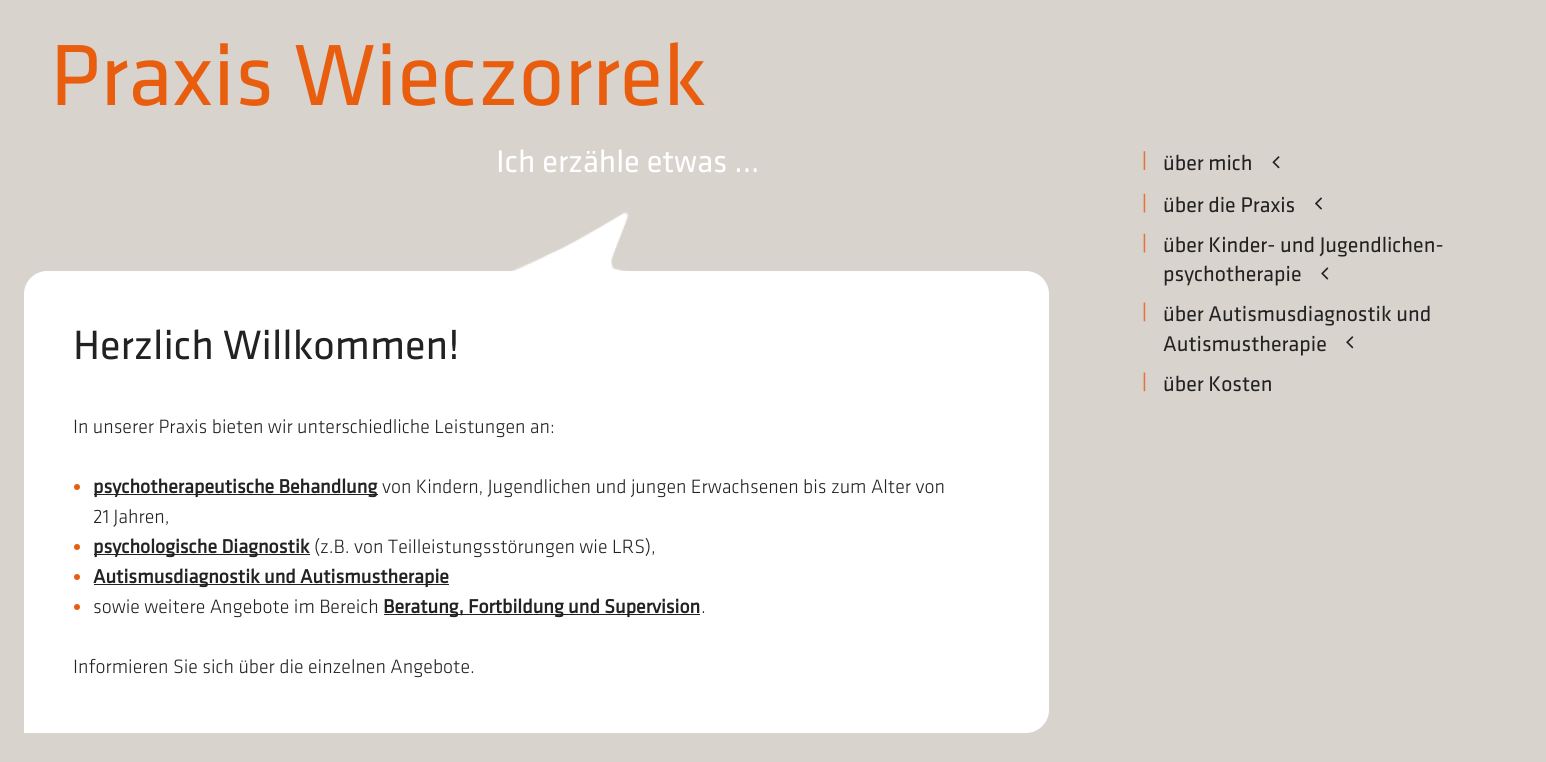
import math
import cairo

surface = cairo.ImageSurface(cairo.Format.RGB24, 1546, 762)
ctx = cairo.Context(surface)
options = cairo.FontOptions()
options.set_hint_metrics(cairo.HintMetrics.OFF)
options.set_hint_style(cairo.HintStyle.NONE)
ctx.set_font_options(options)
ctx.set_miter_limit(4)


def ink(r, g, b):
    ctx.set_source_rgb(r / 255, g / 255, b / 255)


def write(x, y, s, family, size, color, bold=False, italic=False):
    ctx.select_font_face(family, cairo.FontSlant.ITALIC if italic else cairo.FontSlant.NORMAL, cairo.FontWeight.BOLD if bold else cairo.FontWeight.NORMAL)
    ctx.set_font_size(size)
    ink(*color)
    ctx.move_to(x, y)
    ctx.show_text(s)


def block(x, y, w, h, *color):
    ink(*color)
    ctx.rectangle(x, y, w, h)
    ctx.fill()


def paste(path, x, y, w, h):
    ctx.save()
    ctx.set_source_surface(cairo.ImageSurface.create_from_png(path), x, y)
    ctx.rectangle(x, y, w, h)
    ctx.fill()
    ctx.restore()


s1 = dict(family="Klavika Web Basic", size=90, color=(233, 93, 15))
s2 = dict(family="Klavika Web Basic", size=32.5, color=(255, 255, 255))
s3 = dict(family="Klavika Web Basic", size=42.5, color=(34, 34, 34))
s4 = dict(family="Klavika Web Basic Light", size=20, color=(34, 34, 34))
s5 = dict(family="Klavika Web Basic", size=20, color=(34, 34, 34), bold=True)
s6 = dict(family="Klavika Web Basic", size=22, color=(34, 34, 34))

ink(216, 211, 205)
ctx.paint()
write(50, 105, "Praxis Wieczorrek", **s1)
write(496, 172, "Ich erzähle etwas ...", **s2)
paste("pic1.png", 512, 212, 117, 59)
ctx.new_path()
ctx.move_to(47, 271)
ctx.line_to(1026, 271)
ctx.curve_to(1038.5, 271, 1049, 281.5, 1049, 294)
ctx.line_to(1049, 710)
ctx.curve_to(1049, 722.5, 1038.5, 733, 1026, 733)
ctx.line_to(24, 733)
ctx.line_to(24, 294)
ctx.curve_to(24, 281.5, 34.5, 271, 47, 271)
ctx.close_path()
ctx.fill()
write(73, 359, "Herzlich Willkommen!", **s3)
write(73, 433, "In unserer Praxis bieten wir unterschiedliche Leistungen an:", **s4)
ink(233, 93, 15)
ctx.new_path()
ctx.arc(77, 487, 3, 0, 2 * math.pi)
ctx.fill()
block(94, 494, 284, 1, 34, 34, 34)
write(93, 493, "psychotherapeutische Behandlung", **s5)
write(382, 493, "von Kindern, Jugendlichen und jungen Erwachsenen bis zum Alter von", **s4)
write(93, 523, "21 Jahren,", **s4)
ink(233, 93, 15)
ctx.new_path()
ctx.arc(77, 547, 3, 0, 2 * math.pi)
ctx.fill()
block(94, 554, 216, 1, 34, 34, 34)
write(93, 553, "psychologische Diagnostik", **s5)
write(314, 553, "(z.B. von Teilleistungsstörungen wie LRS),", **s4)
ink(233, 93, 15)
ctx.new_path()
ctx.arc(77, 577, 3, 0, 2 * math.pi)
ctx.fill()
block(94, 584, 355, 1, 34, 34, 34)
write(93, 583, "Autismusdiagnostik und Autismustherapie", **s5)
ink(233, 93, 15)
ctx.new_path()
ctx.arc(77, 607, 3, 0, 2 * math.pi)
ctx.fill()
write(93, 613, "sowie weitere Angebote im Bereich", **s4)
block(384, 614, 316, 1, 34, 34, 34)
write(383, 613, "Beratung, Fortbildung und Supervision", **s5)
write(701, 613, ".", **s4)
write(73, 673, "Informieren Sie sich über die einzelnen Angebote.", **s4)
paste("pic2.png", 1142, 151, 4, 19)
write(1163, 170, "über mich", **s6)
paste("pic3.png", 1272, 156, 8, 13)
paste("pic4.png", 1142, 193, 4, 20)
write(1163, 212, "über die Praxis", **s6)
paste("pic5.png", 1315, 197, 7, 13)
paste("pic4.png", 1142, 233, 4, 20)
write(1163, 252, "über Kinder- und Jugendlichen-", **s6)
write(1163, 281, "psychotherapie", **s6)
paste("pic6.png", 1321, 267, 8, 13)
paste("pic7.png", 1142, 302, 4, 20)
write(1163, 321, "über Autismusdiagnostik und", **s6)
write(1163, 351, "Autismustherapie", **s6)
paste("pic8.png", 1346, 336, 8, 13)
paste("pic7.png", 1142, 372, 4, 20)
write(1163, 391, "über Kosten", **s6)
surface.write_to_png("screenshot.png")
